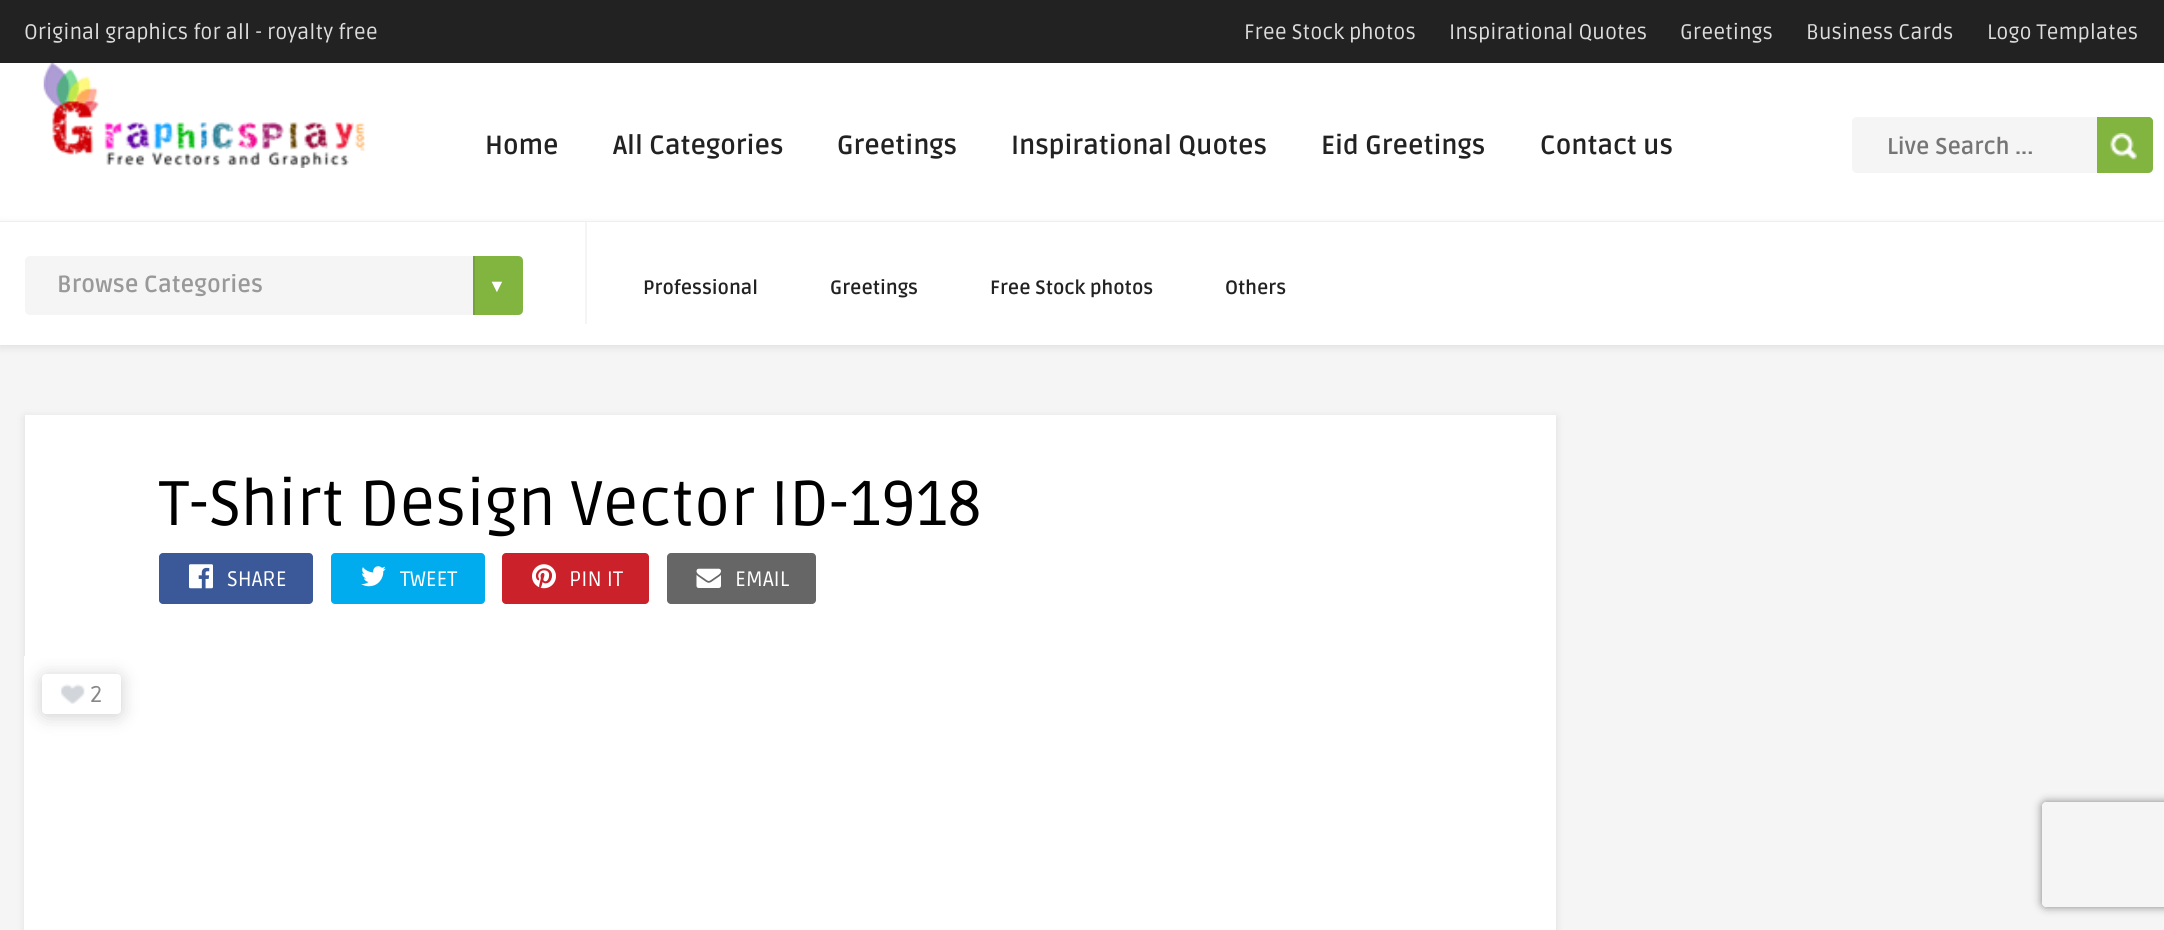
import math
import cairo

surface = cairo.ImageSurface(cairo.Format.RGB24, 2164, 930)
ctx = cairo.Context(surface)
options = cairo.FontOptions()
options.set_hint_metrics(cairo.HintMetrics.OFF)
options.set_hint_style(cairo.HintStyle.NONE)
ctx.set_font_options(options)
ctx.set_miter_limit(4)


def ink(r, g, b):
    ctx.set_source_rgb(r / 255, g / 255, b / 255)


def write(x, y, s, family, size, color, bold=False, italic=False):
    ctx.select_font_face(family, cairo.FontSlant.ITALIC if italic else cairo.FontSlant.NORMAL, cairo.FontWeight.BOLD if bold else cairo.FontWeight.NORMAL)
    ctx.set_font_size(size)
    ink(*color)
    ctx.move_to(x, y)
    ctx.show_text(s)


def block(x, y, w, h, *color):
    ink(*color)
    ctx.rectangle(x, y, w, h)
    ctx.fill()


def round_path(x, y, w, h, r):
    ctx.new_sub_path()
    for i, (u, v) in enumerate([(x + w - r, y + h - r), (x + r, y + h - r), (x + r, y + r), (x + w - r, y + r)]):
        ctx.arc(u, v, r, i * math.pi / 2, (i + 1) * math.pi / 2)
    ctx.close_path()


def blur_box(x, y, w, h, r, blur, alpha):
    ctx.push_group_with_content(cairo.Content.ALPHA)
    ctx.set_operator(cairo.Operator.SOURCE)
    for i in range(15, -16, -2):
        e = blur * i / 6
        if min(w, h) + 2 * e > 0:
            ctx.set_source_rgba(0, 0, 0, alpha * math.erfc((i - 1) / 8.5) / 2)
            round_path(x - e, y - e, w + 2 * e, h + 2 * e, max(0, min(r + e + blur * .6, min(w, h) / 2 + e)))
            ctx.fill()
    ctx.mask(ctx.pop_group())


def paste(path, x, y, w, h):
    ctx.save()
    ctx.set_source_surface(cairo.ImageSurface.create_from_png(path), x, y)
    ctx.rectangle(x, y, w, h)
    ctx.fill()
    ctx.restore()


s1 = dict(family="Ruda", size=21, color=(221, 221, 221))
s2 = dict(family="Ruda", size=26.25, color=(34, 34, 34), bold=True)
s3 = dict(family="Ruda", size=22.75, color=(117, 117, 117), bold=True)
s4 = dict(family="Ruda", size=23.25, color=(153, 153, 153), bold=True)
s5 = dict(family="Liberation Sans", size=18, color=(255, 255, 255))
s6 = dict(family="Ruda", size=19.25, color=(34, 34, 34), bold=True)
s7 = dict(family="Ruda", size=63, color=(0, 0, 0))
s8 = dict(family="Ruda", size=21, color=(255, 255, 255))
s9 = dict(family="Ruda", size=22.75, color=(136, 136, 136))

ink(245, 245, 245)
ctx.paint()
block(0, 63, 2164, 158, 255, 255, 255)
block(0, 0, 2164, 63, 34, 34, 34)
write(24, 39, "Original graphics for all - royalty free", **s1)
write(1244, 39, "Free Stock photos", **s1)
write(1449, 39, "Inspirational Quotes", **s1)
write(1680, 39, "Greetings", **s1)
write(1806, 39, "Business Cards", **s1)
write(1987, 39, "Logo Templates", **s1)
paste("pic1.png", 43, 63, 322, 105)
write(485, 154, "Home", **s2)
write(613, 154, "All Categories", **s2)
write(837, 154, "Greetings", **s2)
write(1011, 154, "Inspirational Quotes", **s2)
write(1321, 154, "Eid Greetings", **s2)
write(1540, 154, "Contact us", **s2)
ink(245, 245, 245)
ctx.new_path()
ctx.move_to(1857, 117)
ctx.line_to(2097, 117)
ctx.line_to(2097, 173)
ctx.line_to(1857, 173)
ctx.curve_to(1854, 173, 1852, 171, 1852, 168)
ctx.line_to(1852, 122)
ctx.curve_to(1852, 119, 1854, 117, 1857, 117)
ctx.close_path()
ctx.fill()
write(1887, 154, "Live Search ...", **s3)
ink(130, 180, 64)
ctx.new_path()
ctx.move_to(2097, 117)
ctx.line_to(2149, 117)
ctx.curve_to(2151, 117, 2153, 119, 2153, 121)
ctx.line_to(2153, 168)
ctx.curve_to(2153, 171, 2151, 173, 2148, 173)
ctx.line_to(2097, 173)
ctx.close_path()
ctx.fill()
paste("pic2.png", 2110, 133, 27, 27)
ink(0, 0, 0)
blur_box(0, 224, 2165, 123, 0, 4.5, 0.1)
block(0, 222, 2164, 123, 255, 255, 255)
ink(245, 245, 245)
round_path(25, 256, 498, 59, 5)
ctx.fill()
write(57, 292, "Browse Categories", **s4)
ink(130, 180, 64)
ctx.new_path()
ctx.move_to(473, 256)
ctx.line_to(518, 256)
ctx.curve_to(521, 256, 523, 258, 523, 261)
ctx.line_to(523, 310)
ctx.curve_to(523, 313, 521, 315, 518, 315)
ctx.line_to(473, 315)
ctx.close_path()
ctx.fill()
block(473, 256, 2, 59, 117, 162, 58)
write(488, 292, "▼", **s5)
block(585, 222, 2, 102, 245, 245, 245)
write(643, 294, "Professional", **s6)
write(830, 294, "Greetings", **s6)
write(990, 294, "Free Stock photos", **s6)
write(1225, 294, "Others", **s6)
ink(0, 0, 0)
blur_box(25, 417, 1531, 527, 0, 4.5, 0.1)
block(25, 415, 1531, 241, 255, 255, 255)
write(159, 525, "T-Shirt Design Vector ID-1918", **s7)
ink(59, 89, 152)
round_path(159, 553, 154, 51, 4)
ctx.fill()
paste("pic3.png", 189, 564, 24, 25)
write(227, 586, "SHARE", **s8)
ink(0, 172, 237)
round_path(331, 553, 154, 51, 4)
ctx.fill()
paste("pic4.png", 361, 566, 25, 21)
write(400, 586, "TWEET", **s8)
ink(202, 33, 42)
round_path(502, 553, 147, 51, 4)
ctx.fill()
paste("pic5.png", 532, 564, 24, 25)
write(569, 586, "PIN IT", **s8)
ink(102, 102, 102)
round_path(667, 553, 149, 51, 4)
ctx.fill()
paste("pic6.png", 696, 568, 25, 20)
write(735, 586, "EMAIL", **s8)
block(24, 656, 1532, 274, 255, 255, 255)
ink(0, 0, 0)
blur_box(42, 676, 79, 40, 4, 9, 0.2)
ink(255, 255, 255)
round_path(42, 674, 79, 40, 4)
ctx.fill()
paste("pic7.png", 60, 684, 25, 20)
write(90, 702, "2", **s9)
ctx.save()
ctx.set_fill_rule(cairo.FillRule.EVEN_ODD)
ctx.new_path()
ctx.move_to(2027, 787)
ctx.line_to(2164, 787)
ctx.line_to(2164, 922)
ctx.line_to(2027, 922)
ctx.close_path()
ctx.move_to(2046, 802)
ctx.line_to(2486, 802)
ctx.curve_to(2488, 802, 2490, 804, 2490, 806)
ctx.line_to(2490, 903)
ctx.curve_to(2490, 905, 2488, 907, 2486, 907)
ctx.line_to(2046, 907)
ctx.curve_to(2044, 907, 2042, 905, 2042, 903)
ctx.line_to(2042, 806)
ctx.curve_to(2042, 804, 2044, 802, 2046, 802)
ctx.close_path()
ctx.clip()
ink(128, 128, 128)
blur_box(2042, 802, 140, 105, 4, 4.5, 1)
ctx.restore()
surface.write_to_png("screenshot.png")
